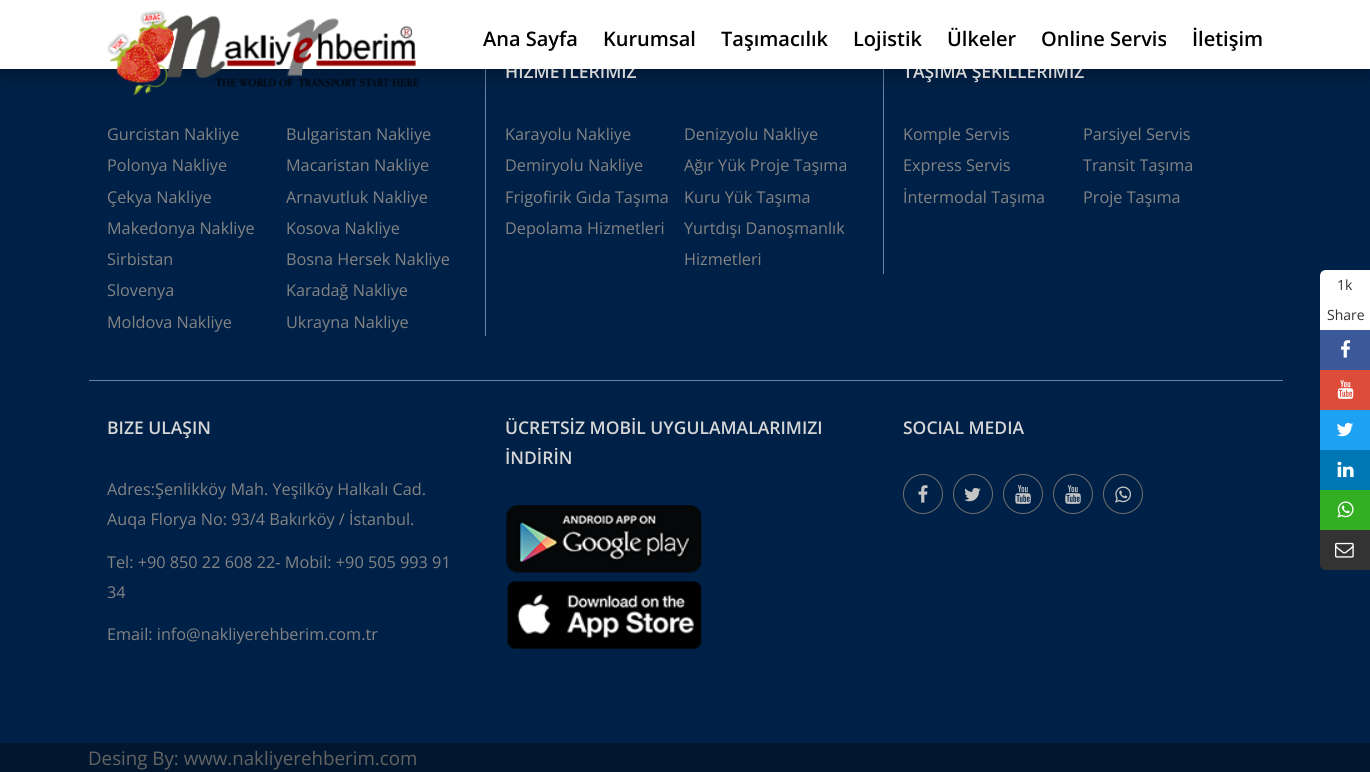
import math
import cairo

surface = cairo.ImageSurface(cairo.Format.RGB24, 1370, 772)
ctx = cairo.Context(surface)
options = cairo.FontOptions()
options.set_hint_metrics(cairo.HintMetrics.OFF)
options.set_hint_style(cairo.HintStyle.NONE)
ctx.set_font_options(options)
ctx.set_miter_limit(4)


def ink(r, g, b):
    ctx.set_source_rgb(r / 255, g / 255, b / 255)


def write(x, y, s, family, size, color, bold=False, italic=False):
    ctx.select_font_face(family, cairo.FontSlant.ITALIC if italic else cairo.FontSlant.NORMAL, cairo.FontWeight.BOLD if bold else cairo.FontWeight.NORMAL)
    ctx.set_font_size(size)
    ink(*color)
    ctx.move_to(x, y)
    ctx.show_text(s)


def block(x, y, w, h, *color):
    ink(*color)
    ctx.rectangle(x, y, w, h)
    ctx.fill()


def round_path(x, y, w, h, r):
    ctx.new_sub_path()
    for i, (u, v) in enumerate([(x + w - r, y + h - r), (x + r, y + h - r), (x + r, y + r), (x + w - r, y + r)]):
        ctx.arc(u, v, r, i * math.pi / 2, (i + 1) * math.pi / 2)
    ctx.close_path()


def blur_box(x, y, w, h, r, blur, alpha):
    ctx.push_group_with_content(cairo.Content.ALPHA)
    ctx.set_operator(cairo.Operator.SOURCE)
    for i in range(15, -16, -2):
        e = blur * i / 6
        if min(w, h) + 2 * e > 0:
            ctx.set_source_rgba(0, 0, 0, alpha * math.erfc((i - 1) / 8.5) / 2)
            round_path(x - e, y - e, w + 2 * e, h + 2 * e, max(0, min(r + e + blur * .6, min(w, h) / 2 + e)))
            ctx.fill()
    ctx.mask(ctx.pop_group())


def paste(path, x, y, w, h):
    ctx.save()
    ctx.set_source_surface(cairo.ImageSurface.create_from_png(path), x, y)
    ctx.rectangle(x, y, w, h)
    ctx.fill()
    ctx.restore()


s1 = dict(family="Open Sans SemiBold", size=17.5, color=(214, 214, 214))
s2 = dict(family="Open Sans SemiBold", size=20, color=(0, 0, 0))
s3 = dict(family="Open Sans", size=16.25, color=(131, 131, 132))
s4 = dict(family="Open Sans", size=14, color=(51, 51, 51))
s5 = dict(family="Open Sans", size=18.75, color=(99, 99, 99))

ink(0, 33, 71)
ctx.paint()
block(485, 69, 1, 267, 106, 131, 160)
block(883, 69, 1, 205, 106, 131, 160)
ink(0, 0, 0)
blur_box(0, 5, 1370, 69, 0, 9.5, 0.32)
write(505, 78, "HIZMETLERIMIZ", **s1)
write(903, 78, "TAŞIMA ŞEKILLERIMIZ", **s1)
block(0, 0, 1370, 69, 255, 255, 255)
paste("pic1.png", 107, 10, 312, 86)
write(483, 46, "Ana Sayfa", **s2)
write(603, 46, "Kurumsal", **s2)
write(721, 46, "Taşımacılık", **s2)
write(853, 46, "Lojistik", **s2)
write(947, 46, "Ülkeler", **s2)
write(1041, 46, "Online Servis", **s2)
write(1192, 46, "İletişim", **s2)
block(89, 380, 1194, 1, 106, 131, 160)
write(107, 140, "Gurcistan Nakliye", **s3)
write(286, 140, "Bulgaristan Nakliye", **s3)
write(107, 171, "Polonya Nakliye", **s3)
write(286, 171, "Macaristan Nakliye", **s3)
write(107, 203, "Çekya Nakliye", **s3)
write(286, 203, "Arnavutluk Nakliye", **s3)
write(107, 234, "Makedonya Nakliye", **s3)
write(286, 234, "Kosova Nakliye", **s3)
write(107, 265, "Sirbistan", **s3)
write(286, 265, "Bosna Hersek Nakliye", **s3)
write(107, 296, "Slovenya", **s3)
write(286, 296, "Karadağ Nakliye", **s3)
write(107, 328, "Moldova Nakliye", **s3)
write(286, 328, "Ukrayna Nakliye", **s3)
write(505, 140, "Karayolu Nakliye", **s3)
write(684, 140, "Denizyolu Nakliye", **s3)
write(505, 171, "Demiryolu Nakliye", **s3)
write(684, 171, "Ağır Yük Proje Taşıma", **s3)
write(505, 203, "Frigofirik Gıda Taşıma", **s3)
write(684, 203, "Kuru Yük Taşıma", **s3)
write(505, 234, "Depolama Hizmetleri", **s3)
write(684, 234, "Yurtdışı Danoşmanlık", **s3)
write(684, 265, "Hizmetleri", **s3)
write(903, 140, "Komple Servis", **s3)
write(1083, 140, "Parsiyel Servis", **s3)
write(903, 171, "Express Servis", **s3)
write(1083, 171, "Transit Taşıma", **s3)
write(903, 203, "İntermodal Taşıma", **s3)
write(1083, 203, "Proje Taşıma", **s3)
write(107, 434, "BIZE ULAŞIN", **s1)
write(107, 495, "Adres:Şenlikköy Mah. Yeşilköy Halkalı Cad.", **s3)
write(107, 525, "Auqa Florya No: 93/4 Bakırköy / İstanbul.", **s3)
write(107, 568, "Tel: +90 850 22 608 22- Mobil: +90 505 993 91", **s3)
write(107, 598, "34", **s3)
write(107, 640, "Email: info@nakliyerehberim.com.tr", **s3)
write(505, 434, "ÜCRETSİZ MOBİL UYGULAMALARIMIZI", **s1)
write(505, 464, "İNDİRİN", **s1)
paste("pic2.png", 506, 505, 196, 68)
paste("pic3.png", 507, 581, 195, 68)
write(903, 434, "SOCIAL MEDIA", **s1)
ctx.new_path()
ctx.arc(923, 494, 19.5, 0, 2 * math.pi)
ink(111, 111, 111)
ctx.set_line_width(1)
ctx.stroke()
paste("pic4.png", 918, 485, 10, 18)
ctx.arc(973, 494, 19.5, 0, 2 * math.pi)
ctx.stroke()
paste("pic5.png", 964, 487, 17, 15)
ctx.arc(1023, 494, 19.5, 0, 2 * math.pi)
ctx.stroke()
paste("pic6.png", 1015, 485, 16, 19)
ctx.arc(1073, 494, 19.5, 0, 2 * math.pi)
ctx.stroke()
paste("pic6.png", 1065, 485, 16, 19)
ctx.arc(1123, 494, 19.5, 0, 2 * math.pi)
ctx.stroke()
paste("pic7.png", 1115, 486, 17, 17)
ink(255, 255, 255)
ctx.new_path()
ctx.move_to(1326, 270)
ctx.line_to(1370, 270)
ctx.line_to(1370, 330)
ctx.line_to(1320, 330)
ctx.line_to(1320, 276)
ctx.curve_to(1320, 272.5, 1322.5, 270, 1326, 270)
ctx.close_path()
ctx.fill()
write(1337, 290, "1k", **s4)
write(1327, 320, "Share", **s4)
block(1320, 330, 50, 40, 59, 89, 152)
paste("pic8.png", 1341, 340, 10, 18)
block(1320, 370, 50, 40, 221, 75, 57)
paste("pic9.png", 1337, 380, 17, 19)
block(1320, 410, 50, 40, 29, 161, 242)
paste("pic10.png", 1336, 422, 17, 15)
block(1320, 450, 50, 40, 0, 119, 181)
paste("pic11.png", 1337, 461, 17, 17)
block(1320, 490, 50, 40, 52, 175, 35)
paste("pic12.png", 1337, 501, 17, 17)
ink(51, 51, 51)
ctx.new_path()
ctx.move_to(1320, 530)
ctx.line_to(1370, 530)
ctx.line_to(1370, 570)
ctx.line_to(1326, 570)
ctx.curve_to(1322.5, 570, 1320, 567.5, 1320, 564)
ctx.close_path()
ctx.fill()
paste("pic13.png", 1335, 542, 19, 16)
block(0, 743, 1370, 29, 1, 23, 47)
write(88, 765, "Desing By: www.nakliyerehberim.com", **s5)
surface.write_to_png("screenshot.png")
